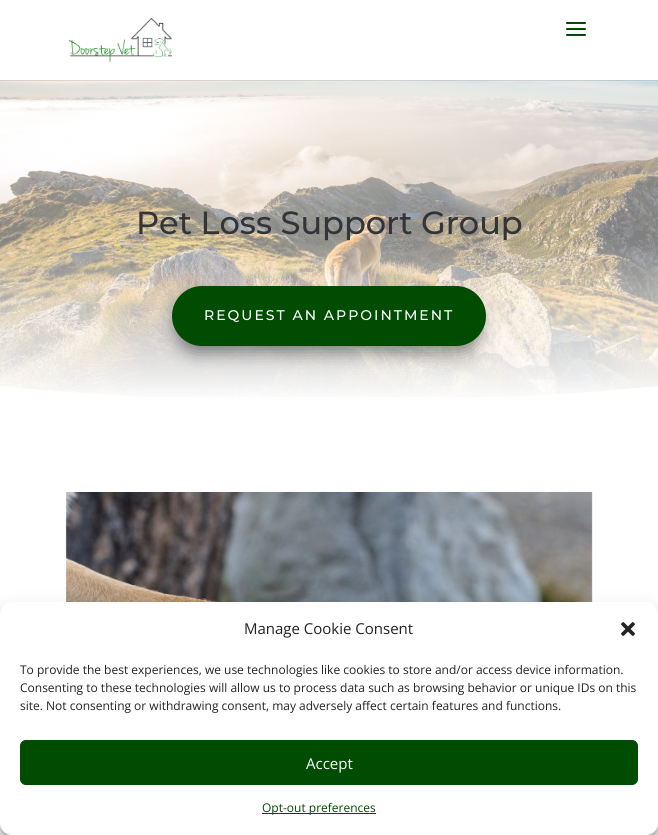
import math
import cairo

surface = cairo.ImageSurface(cairo.Format.RGB24, 658, 835)
ctx = cairo.Context(surface)
options = cairo.FontOptions()
options.set_hint_metrics(cairo.HintMetrics.OFF)
options.set_hint_style(cairo.HintStyle.NONE)
ctx.set_font_options(options)
ctx.set_miter_limit(4)


def ink(r, g, b):
    ctx.set_source_rgb(r / 255, g / 255, b / 255)


def write(x, y, s, family, size, color, bold=False, italic=False):
    ctx.select_font_face(family, cairo.FontSlant.ITALIC if italic else cairo.FontSlant.NORMAL, cairo.FontWeight.BOLD if bold else cairo.FontWeight.NORMAL)
    ctx.set_font_size(size)
    ink(*color)
    ctx.move_to(x, y)
    ctx.show_text(s)


def write_spaced(x, y, s, letter, word):
    ctx.move_to(x, y)
    for ch in s:
        ctx.show_text(ch)
        ctx.rel_move_to(letter + word * (ch == ' '), 0)


def block(x, y, w, h, *color):
    ink(*color)
    ctx.rectangle(x, y, w, h)
    ctx.fill()


def round_path(x, y, w, h, r):
    ctx.new_sub_path()
    for i, (u, v) in enumerate([(x + w - r, y + h - r), (x + r, y + h - r), (x + r, y + r), (x + w - r, y + r)]):
        ctx.arc(u, v, r, i * math.pi / 2, (i + 1) * math.pi / 2)
    ctx.close_path()


def blur_box(x, y, w, h, r, blur, alpha):
    ctx.push_group_with_content(cairo.Content.ALPHA)
    ctx.set_operator(cairo.Operator.SOURCE)
    for i in range(15, -16, -2):
        e = blur * i / 6
        if min(w, h) + 2 * e > 0:
            ctx.set_source_rgba(0, 0, 0, alpha * math.erfc((i - 1) / 8.5) / 2)
            round_path(x - e, y - e, w + 2 * e, h + 2 * e, max(0, min(r + e + blur * .6, min(w, h) / 2 + e)))
            ctx.fill()
    ctx.mask(ctx.pop_group())


def paste(path, x, y, w, h):
    ctx.save()
    ctx.set_source_surface(cairo.ImageSurface.create_from_png(path), x, y)
    ctx.rectangle(x, y, w, h)
    ctx.fill()
    ctx.restore()


s1 = dict(family="Montserrat Medium", size=32, color=(50, 52, 55))
s2 = dict(family="Open Sans", size=15, color=(34, 34, 34))
s3 = dict(family="Open Sans", size=12, color=(34, 34, 34))
s4 = dict(family="Open Sans", size=15, color=(255, 255, 255))
s5 = dict(family="Open Sans", size=12, color=(0, 76, 2))

ink(255, 255, 255)
ctx.paint()
paste("pic3.png", 0, 80, 658, 317)
ctx.set_source_rgba(0, 0, 0, 0.1)
ctx.rectangle(0, 80, 658, 1)
ctx.fill()
paste("pic1.png", 69, 18, 103, 44)
paste("pic2.png", 566, 22, 20, 14)
write(136, 234, "Pet Loss Support Group", **s1)
ink(50, 52, 55)
blur_box(178, 304, 302, 48, 24, 9, 0.6)
ink(0, 76, 2)
round_path(172, 286, 314, 60, 30)
ctx.fill()
ctx.set_font_size(14)
ink(255, 255, 255)
write_spaced(204, 320, "REQUEST AN APPOINTMENT", 2, 0)
ctx.new_path()
ctx.move_to(658, 402)
ctx.line_to(658, 386)
ctx.curve_to(658, 386, 511, 402, 329, 402)
ctx.curve_to(147, 402, 0, 386, 0, 386)
ctx.line_to(0, 402)
ctx.close_path()
ctx.fill()
paste("pic4.png", 65, 492, 528, 110)
ink(0, 0, 0)
blur_box(0, 608, 658, 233, 12, 3, 0.23)
blur_box(0, 612, 658, 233, 12, 10, 0.19)
ink(255, 255, 255)
round_path(0, 602, 658, 233, 12)
ctx.fill()
write(244, 634, "Manage Cookie Consent", **s2)
paste("pic5.png", 621, 622, 14, 14)
write(20, 674, "To provide the best experiences, we use technologies like cookies to store and/or access device information.", **s3)
write(20, 692, "Consenting to these technologies will allow us to process data such as browsing behavior or unique IDs on this", **s3)
write(20, 710, "site. Not consenting or withdrawing consent, may adversely affect certain features and functions.", **s3)
ink(0, 76, 2)
round_path(20.5, 740.5, 617, 44, 5.5)
ctx.fill_preserve()
ctx.set_line_width(1)
ctx.stroke()
write(306, 769, "Accept", **s4)
block(262, 813, 114, 1, 0, 76, 2)
write(262, 812, "Opt-out preferences", **s5)
surface.write_to_png("screenshot.png")
